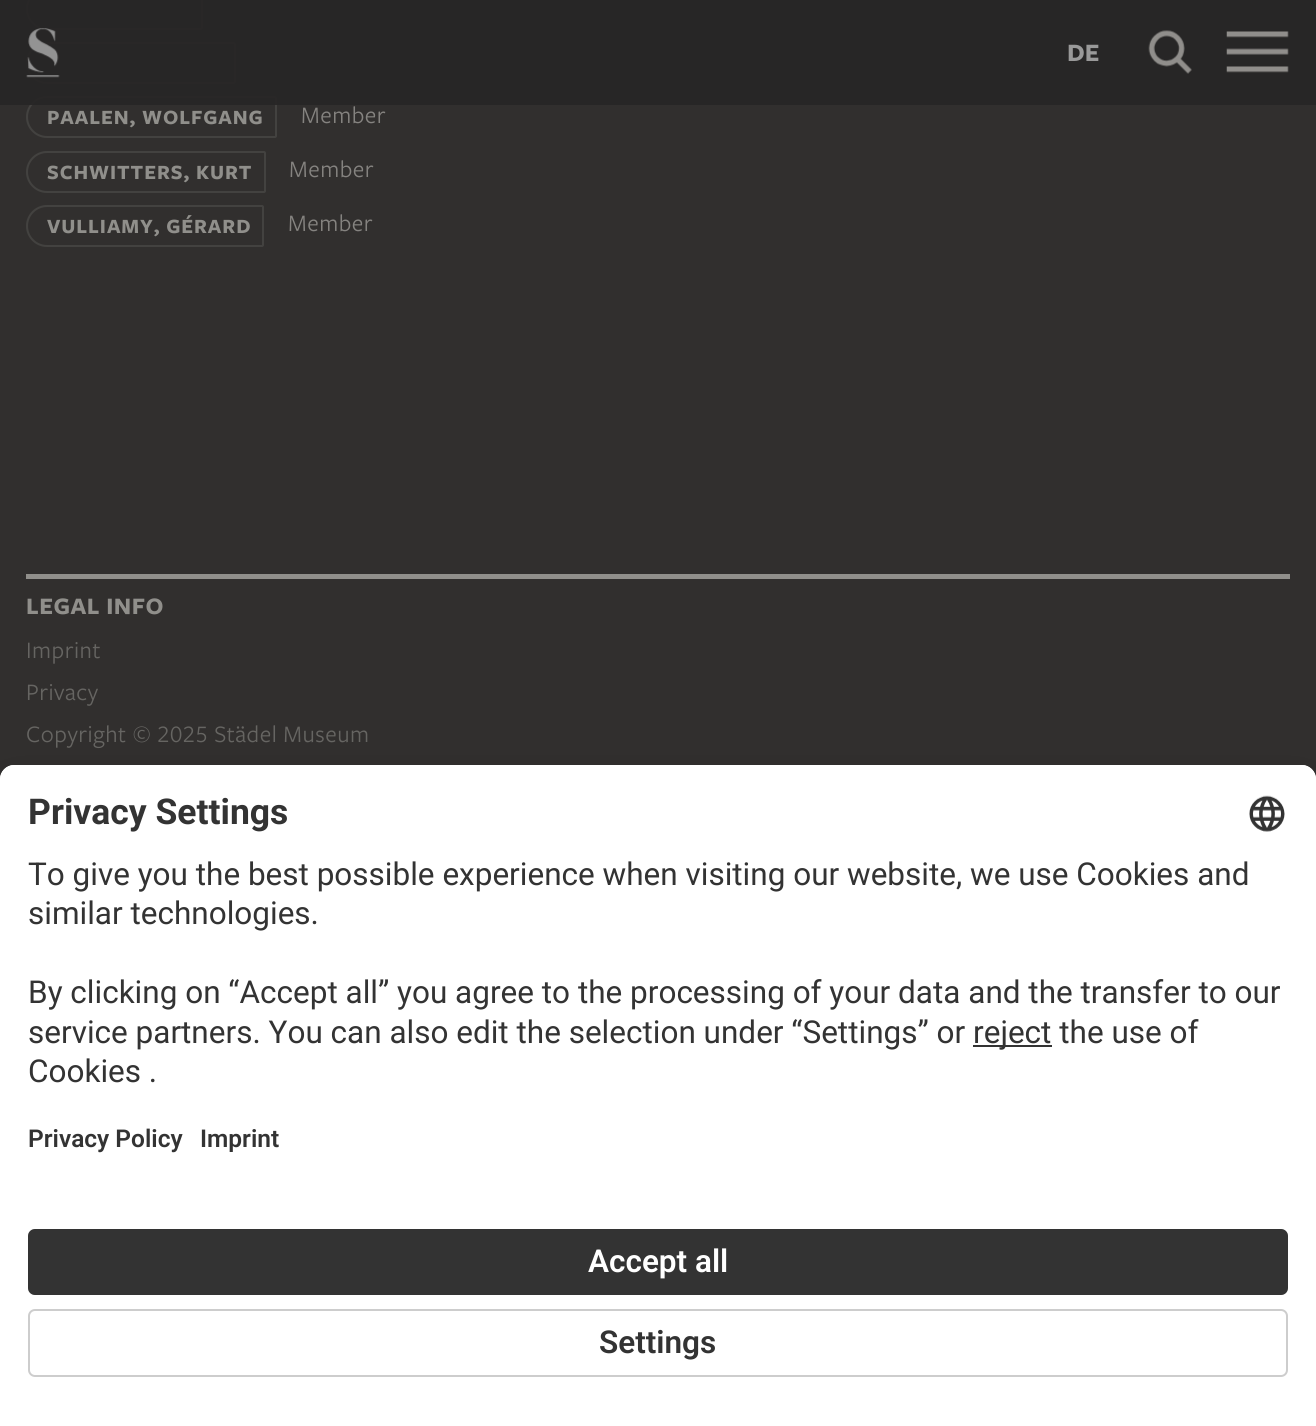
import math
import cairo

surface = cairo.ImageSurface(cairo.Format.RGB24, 1316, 1426)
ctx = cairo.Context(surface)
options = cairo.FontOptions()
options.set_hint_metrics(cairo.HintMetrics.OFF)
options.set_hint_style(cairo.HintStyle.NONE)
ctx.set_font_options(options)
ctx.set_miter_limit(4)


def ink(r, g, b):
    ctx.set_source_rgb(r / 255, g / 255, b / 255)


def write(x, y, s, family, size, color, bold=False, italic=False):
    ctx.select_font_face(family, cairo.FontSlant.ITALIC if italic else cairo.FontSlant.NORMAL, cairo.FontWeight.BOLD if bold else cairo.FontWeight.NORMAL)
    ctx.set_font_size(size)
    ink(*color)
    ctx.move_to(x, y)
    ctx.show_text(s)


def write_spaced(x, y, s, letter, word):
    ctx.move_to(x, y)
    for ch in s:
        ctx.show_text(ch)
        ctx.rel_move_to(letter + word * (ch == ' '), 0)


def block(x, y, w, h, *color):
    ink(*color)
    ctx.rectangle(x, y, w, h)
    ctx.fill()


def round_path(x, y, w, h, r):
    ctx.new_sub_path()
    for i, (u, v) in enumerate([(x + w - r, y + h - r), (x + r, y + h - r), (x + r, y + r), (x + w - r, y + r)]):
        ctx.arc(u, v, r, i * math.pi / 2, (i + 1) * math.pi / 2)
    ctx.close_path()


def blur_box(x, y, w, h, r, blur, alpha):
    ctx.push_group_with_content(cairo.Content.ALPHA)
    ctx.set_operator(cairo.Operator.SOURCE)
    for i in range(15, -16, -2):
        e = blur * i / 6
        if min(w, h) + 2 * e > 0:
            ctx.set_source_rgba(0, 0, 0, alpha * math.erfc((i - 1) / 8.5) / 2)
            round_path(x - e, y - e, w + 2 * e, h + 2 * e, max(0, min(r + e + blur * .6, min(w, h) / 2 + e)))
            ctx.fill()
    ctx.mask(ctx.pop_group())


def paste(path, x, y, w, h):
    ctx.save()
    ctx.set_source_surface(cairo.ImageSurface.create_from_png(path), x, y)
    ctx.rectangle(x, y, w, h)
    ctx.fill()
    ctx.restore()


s1 = dict(family="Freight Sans", size=26, color=(153, 153, 153), bold=True)
s2 = dict(family="Roboto", size=35.5, color=(51, 51, 51), bold=True)
s3 = dict(family="Roboto", size=31.5, color=(51, 51, 51))
s4 = dict(family="Roboto SemiBold", size=24.5, color=(51, 51, 51))
s5 = dict(family="Roboto SemiBold", size=31.5, color=(255, 255, 255))
s6 = dict(family="Roboto SemiBold", size=31.5, color=(51, 51, 51))

ink(49, 47, 46)
ctx.paint()
ctx.new_path()
ctx.move_to(47, -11)
ctx.line_to(201, -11)
ctx.curve_to(201.5, -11, 202, -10.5, 202, -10)
ctx.line_to(202, 28)
ctx.curve_to(202, 28.5, 201.5, 29, 201, 29)
ctx.line_to(47, 29)
ctx.curve_to(36, 29, 27, 20, 27, 9)
ctx.curve_to(27, -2, 36, -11, 47, -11)
ctx.close_path()
ink(67, 66, 64)
ctx.stroke()
ctx.new_path()
ctx.move_to(47, 43)
ctx.line_to(234, 43)
ctx.curve_to(234.5, 43, 235, 43.5, 235, 44)
ctx.line_to(235, 82)
ctx.curve_to(235, 82.5, 234.5, 83, 234, 83)
ctx.line_to(47, 83)
ctx.curve_to(36, 83, 27, 74, 27, 63)
ctx.curve_to(27, 52, 36, 43, 47, 43)
ctx.close_path()
ctx.stroke()
ctx.new_path()
ctx.move_to(47, 97)
ctx.line_to(275, 97)
ctx.curve_to(275.5, 97, 276, 97.5, 276, 98)
ctx.line_to(276, 136)
ctx.curve_to(276, 136.5, 275.5, 137, 275, 137)
ctx.line_to(47, 137)
ctx.curve_to(36, 137, 27, 128, 27, 117)
ctx.curve_to(27, 106, 36, 97, 47, 97)
ctx.close_path()
ctx.stroke()
ctx.set_source_rgba(0.149, 0.145, 0.145, 0.9)
ctx.rectangle(0, 0, 1316, 105)
ctx.fill()
paste("pic1.png", 26, 28, 34, 50)
write(1067, 61, "DE", **s1)
paste("pic2.png", 1148, 30, 44, 44)
paste("pic3.png", 1226, 31, 63, 42)
ctx.set_font_size(21)
ink(144, 143, 139)
write_spaced(47, 124, "PAALEN, WOLFGANG", 0.9, 0)
ctx.select_font_face("Freight Sans")
ctx.set_font_size(24.5)
ink(133, 131, 128)
write_spaced(301, 123, "Member", 0.5, 0)
ctx.new_path()
ctx.move_to(47, 152)
ctx.line_to(264, 152)
ctx.curve_to(264.5, 152, 265, 152.5, 265, 153)
ctx.line_to(265, 191)
ctx.curve_to(265, 191.5, 264.5, 192, 264, 192)
ctx.line_to(47, 192)
ctx.curve_to(36, 192, 27, 183, 27, 172)
ctx.curve_to(27, 161, 36, 152, 47, 152)
ctx.close_path()
ink(67, 66, 64)
ctx.stroke()
ctx.select_font_face("Freight Sans", cairo.FontSlant.NORMAL, cairo.FontWeight.BOLD)
ctx.set_font_size(21)
ink(144, 143, 139)
write_spaced(47, 179, "SCHWITTERS, KURT", 0.9, 0)
ctx.select_font_face("Freight Sans")
ctx.set_font_size(24.5)
ink(133, 131, 128)
write_spaced(289, 177, "Member", 0.5, 0)
ctx.new_path()
ctx.move_to(47, 206)
ctx.line_to(262, 206)
ctx.curve_to(262.5, 206, 263, 206.5, 263, 207)
ctx.line_to(263, 245)
ctx.curve_to(263, 245.5, 262.5, 246, 262, 246)
ctx.line_to(47, 246)
ctx.curve_to(36, 246, 27, 237, 27, 226)
ctx.curve_to(27, 215, 36, 206, 47, 206)
ctx.close_path()
ink(67, 66, 64)
ctx.stroke()
ctx.select_font_face("Freight Sans", cairo.FontSlant.NORMAL, cairo.FontWeight.BOLD)
ctx.set_font_size(21)
ink(144, 143, 139)
write_spaced(47, 233, "VULLIAMY, GÉRARD", 0.9, 0)
ctx.select_font_face("Freight Sans")
ctx.set_font_size(24.5)
ink(133, 131, 128)
write_spaced(288, 231, "Member", 0.5, 0)
block(26, 574, 1264, 5, 144, 143, 139)
ctx.select_font_face("Freight Sans", cairo.FontSlant.NORMAL, cairo.FontWeight.BOLD)
write_spaced(26, 614, "LEGAL INFO", 0.5, 0)
ctx.select_font_face("Freight Sans")
ink(102, 101, 98)
write_spaced(26, 658, "Imprint", 0.5, 0)
write_spaced(26, 700, "Privacy", 0.5, 0)
ctx.select_font_face("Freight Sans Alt")
write_spaced(26, 742, "Copyright © 2025 Städel Museum", 0.5, 0)
ink(0, 0, 0)
blur_box(0, 800, 1316, 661, 14, 24.5, 0.3)
ink(255, 255, 255)
ctx.new_path()
ctx.move_to(14, 765)
ctx.line_to(1302, 765)
ctx.curve_to(1309.5, 765, 1316, 771.5, 1316, 779)
ctx.line_to(1316, 1426)
ctx.line_to(0, 1426)
ctx.line_to(0, 779)
ctx.curve_to(0, 771.5, 6.5, 765, 14, 765)
ctx.close_path()
ctx.fill()
ctx.new_path()
ctx.move_to(14, 765)
ctx.line_to(1302, 765)
ctx.curve_to(1309.5, 765, 1316, 771.5, 1316, 779)
ctx.line_to(1316, 1208)
ctx.line_to(0, 1208)
ctx.line_to(0, 779)
ctx.curve_to(0, 771.5, 6.5, 765, 14, 765)
ctx.close_path()
ctx.fill()
write(28, 824, "Privacy Settings", **s2)
paste("pic4.png", 1249, 795, 36, 37)
write(28, 885, "To give you the best possible experience when visiting our website, we use Cookies and", **s3)
write(28, 924, "similar technologies.", **s3)
write(28, 1003, "By clicking on “Accept all” you agree to the processing of your data and the transfer to our", **s3)
write(28, 1043, "service partners. You can also edit the selection under “Settings” or", **s3)
block(973, 1045, 79, 2, 51, 51, 51)
write(973, 1043, "reject the use of", **s3)
write(28, 1082, "Cookies .", **s3)
write(28, 1147, "Privacy Policy", **s4)
write(200, 1147, "Imprint", **s4)
round_path(28, 1229, 1260, 66, 7)
ctx.fill()
round_path(29, 1230, 1258, 64, 6)
ctx.set_source_rgba(0.208, 0.208, 0.208, 0.25)
ctx.stroke()
write(588, 1272, "Accept all", **s5)
round_path(29, 1310, 1258, 66, 6)
ink(205, 205, 205)
ctx.stroke()
write(599, 1353, "Settings", **s6)
surface.write_to_png("screenshot.png")
